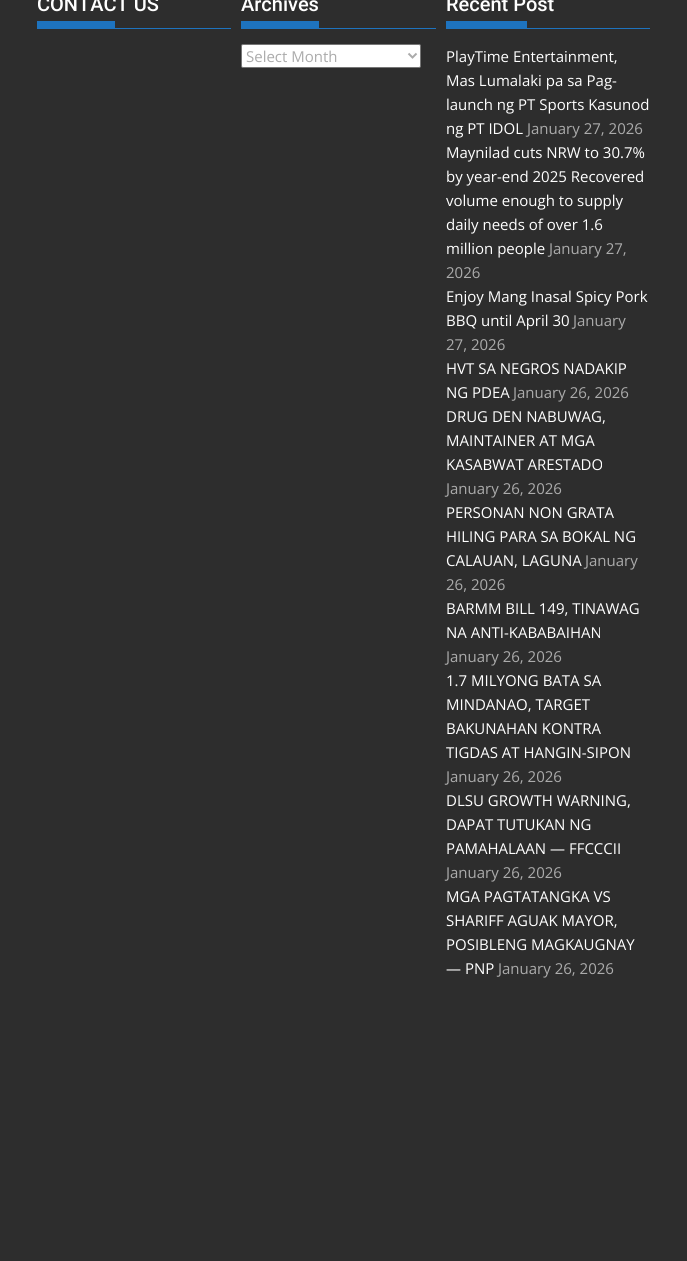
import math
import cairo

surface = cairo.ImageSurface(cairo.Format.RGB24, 687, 1261)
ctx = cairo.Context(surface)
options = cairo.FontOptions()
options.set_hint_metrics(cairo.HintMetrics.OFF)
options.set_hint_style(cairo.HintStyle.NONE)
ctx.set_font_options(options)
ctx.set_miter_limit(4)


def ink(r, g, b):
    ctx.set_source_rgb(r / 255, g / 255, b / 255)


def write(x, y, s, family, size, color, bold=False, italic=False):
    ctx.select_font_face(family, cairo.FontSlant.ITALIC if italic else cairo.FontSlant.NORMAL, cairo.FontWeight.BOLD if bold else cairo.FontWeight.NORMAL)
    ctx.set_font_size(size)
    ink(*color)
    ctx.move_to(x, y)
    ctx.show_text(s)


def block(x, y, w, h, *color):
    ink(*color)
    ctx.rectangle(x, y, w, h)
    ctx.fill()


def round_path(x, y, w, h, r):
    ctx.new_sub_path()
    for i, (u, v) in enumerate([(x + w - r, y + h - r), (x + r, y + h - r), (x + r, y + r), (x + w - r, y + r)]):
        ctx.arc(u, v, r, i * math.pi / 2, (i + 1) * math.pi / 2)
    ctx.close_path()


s1 = dict(family="Roboto Medium", size=20, color=(255, 255, 255))
s2 = dict(family="Open Sans", size=15, color=(171, 171, 171))
s3 = dict(family="Open Sans", size=15, color=(255, 255, 255))

ink(45, 45, 45)
ctx.paint()
block(37, 28, 194, 1, 30, 115, 190)
write(37, 11, "CONTACT US", **s1)
block(37, 21, 78, 7, 30, 115, 190)
block(241, 28, 195, 1, 30, 115, 190)
write(241, 11, "Archives", **s1)
block(241, 21, 78, 7, 30, 115, 190)
ink(255, 255, 255)
round_path(241.5, 44.5, 179, 23, 1.5)
ctx.fill_preserve()
ink(118, 118, 118)
ctx.set_line_width(1)
ctx.stroke()
ctx.new_path()
ctx.move_to(408.5, 53.5)
ctx.line_to(412.5, 57.5)
ctx.line_to(416.5, 53.5)
ink(171, 171, 171)
ctx.set_line_width(2)
ctx.stroke()
write(246, 62, "Select Month", **s2)
block(446, 28, 204, 1, 30, 115, 190)
write(446, 11, "Recent Post", **s1)
block(446, 21, 81, 7, 30, 115, 190)
write(446, 62, "PlayTime Entertainment,", **s3)
write(446, 86, "Mas Lumalaki pa sa Pag-", **s3)
write(446, 110, "launch ng PT Sports Kasunod", **s3)
write(446, 134, "ng PT IDOL", **s3)
write(527, 134, "January 27, 2026", **s2)
write(446, 158, "Maynilad cuts NRW to 30.7%", **s3)
write(446, 182, "by year-end 2025 Recovered", **s3)
write(446, 206, "volume enough to supply", **s3)
write(446, 230, "daily needs of over 1.6", **s3)
write(446, 254, "million people", **s3)
write(549, 254, "January 27,", **s2)
write(446, 278, "2026", **s2)
write(446, 302, "Enjoy Mang Inasal Spicy Pork", **s3)
write(446, 326, "BBQ until April 30", **s3)
write(573, 326, "January", **s2)
write(446, 350, "27, 2026", **s2)
write(446, 374, "HVT SA NEGROS NADAKIP", **s3)
write(446, 398, "NG PDEA", **s3)
write(513, 398, "January 26, 2026", **s2)
write(446, 422, "DRUG DEN NABUWAG,", **s3)
write(446, 446, "MAINTAINER AT MGA", **s3)
write(446, 470, "KASABWAT ARESTADO", **s3)
write(446, 494, "January 26, 2026", **s2)
write(446, 518, "PERSONAN NON GRATA", **s3)
write(446, 542, "HILING PARA SA BOKAL NG", **s3)
write(446, 566, "CALAUAN, LAGUNA", **s3)
write(585, 566, "January", **s2)
write(446, 590, "26, 2026", **s2)
write(446, 614, "BARMM BILL 149, TINAWAG", **s3)
write(446, 638, "NA ANTI-KABABAIHAN", **s3)
write(446, 662, "January 26, 2026", **s2)
write(446, 686, "1.7 MILYONG BATA SA", **s3)
write(446, 710, "MINDANAO, TARGET", **s3)
write(446, 734, "BAKUNAHAN KONTRA", **s3)
write(446, 758, "TIGDAS AT HANGIN-SIPON", **s3)
write(446, 782, "January 26, 2026", **s2)
write(446, 806, "DLSU GROWTH WARNING,", **s3)
write(446, 830, "DAPAT TUTUKAN NG", **s3)
write(446, 854, "PAMAHALAAN — FFCCCII", **s3)
write(446, 878, "January 26, 2026", **s2)
write(446, 902, "MGA PAGTATANGKA VS", **s3)
write(446, 926, "SHARIFF AGUAK MAYOR,", **s3)
write(446, 950, "POSIBLENG MAGKAUGNAY", **s3)
write(446, 974, "— PNP", **s3)
write(498, 974, "January 26, 2026", **s2)
surface.write_to_png("screenshot.png")
